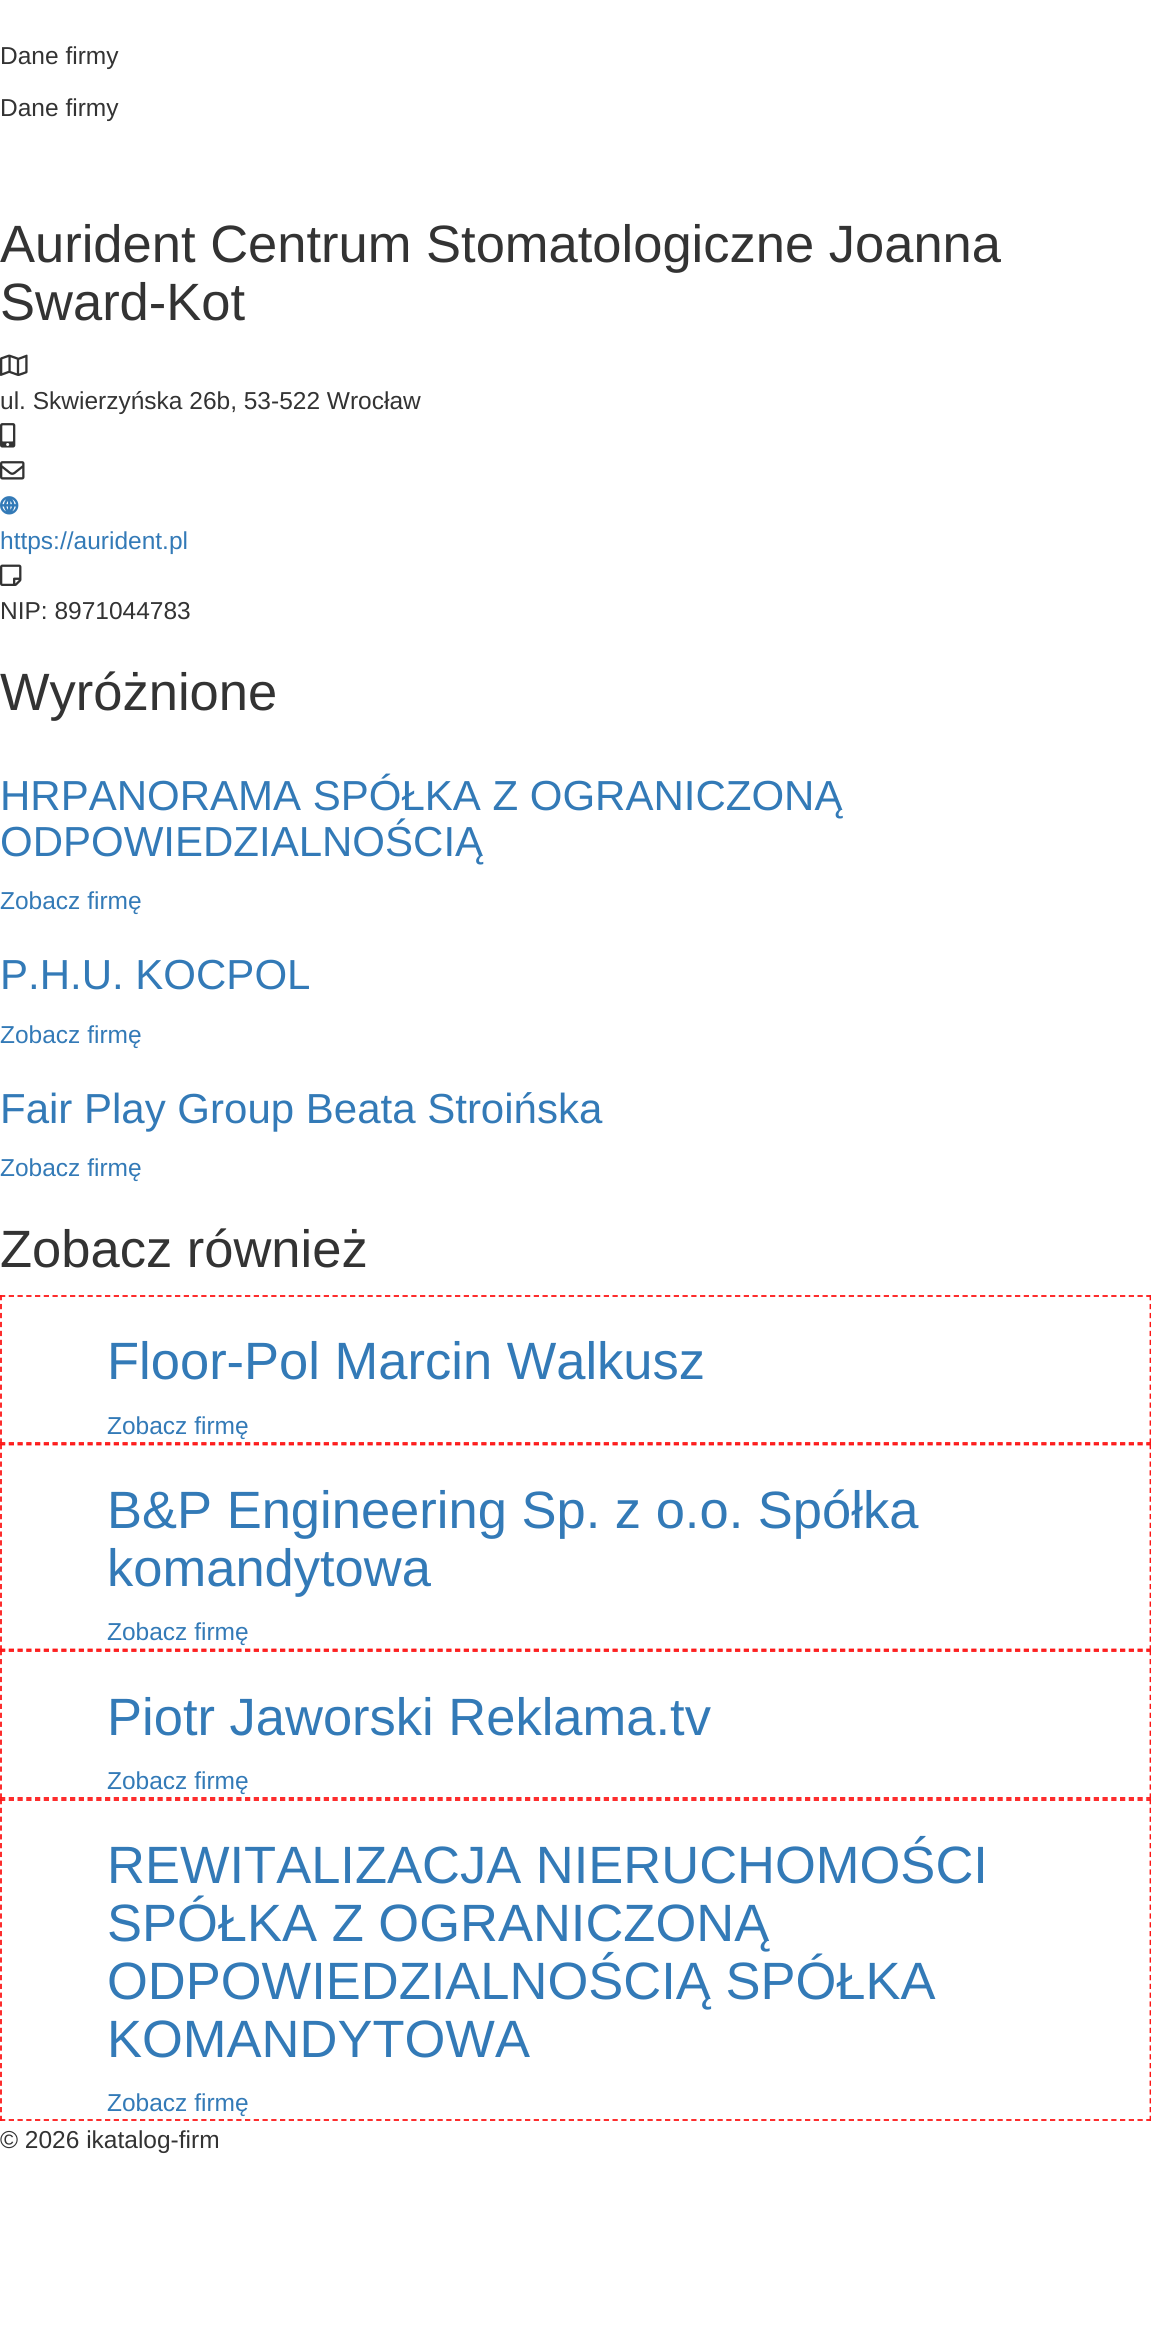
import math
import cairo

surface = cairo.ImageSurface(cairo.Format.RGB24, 1151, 2341)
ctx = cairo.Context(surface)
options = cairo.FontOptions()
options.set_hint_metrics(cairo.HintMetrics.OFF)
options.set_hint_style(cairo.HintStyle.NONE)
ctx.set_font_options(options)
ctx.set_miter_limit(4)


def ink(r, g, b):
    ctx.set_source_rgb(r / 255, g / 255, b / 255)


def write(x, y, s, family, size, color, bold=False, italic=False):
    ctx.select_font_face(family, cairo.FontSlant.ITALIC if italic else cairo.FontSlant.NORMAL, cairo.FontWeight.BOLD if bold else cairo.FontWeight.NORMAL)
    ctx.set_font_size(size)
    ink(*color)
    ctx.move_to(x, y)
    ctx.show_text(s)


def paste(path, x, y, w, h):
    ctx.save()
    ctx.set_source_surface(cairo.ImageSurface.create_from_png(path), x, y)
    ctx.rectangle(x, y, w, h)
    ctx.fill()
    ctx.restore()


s1 = dict(family="Liberation Sans", size=24.5, color=(51, 51, 51))
s2 = dict(family="Liberation Sans", size=52.5, color=(51, 51, 51))
s3 = dict(family="Liberation Sans", size=24.5, color=(51, 122, 183))
s4 = dict(family="Liberation Sans", size=42, color=(51, 122, 183))
s5 = dict(family="Liberation Sans", size=52.5, color=(51, 122, 183))

ink(255, 255, 255)
ctx.paint()
write(0, 64, "Dane firmy", **s1)
write(0, 116, "Dane firmy", **s1)
write(0, 262, "Aurident Centrum Stomatologiczne Joanna", **s2)
write(0, 320, "Sward-Kot", **s2)
paste("pic1.png", 0, 354, 28, 22)
write(0, 409, "ul. Skwierzyńska 26b, 53-522 Wrocław", **s1)
paste("pic2.png", 0, 423, 16, 25)
paste("pic3.png", 0, 461, 25, 19)
paste("pic4.png", 0, 496, 19, 19)
write(0, 549, "https://aurident.pl", **s3)
paste("pic5.png", 0, 564, 22, 22)
write(0, 619, "NIP: 8971044783", **s1)
write(0, 710, "Wyróżnione", **s2)
write(0, 810, "HRPANORAMA SPÓŁKA Z OGRANICZONĄ", **s4)
write(0, 856, "ODPOWIEDZIALNOŚCIĄ", **s4)
write(0, 909, "Zobacz firmę", **s3)
write(0, 989, "P.H.U. KOCPOL", **s4)
write(0, 1043, "Zobacz firmę", **s3)
write(0, 1123, "Fair Play Group Beata Stroińska", **s4)
write(0, 1176, "Zobacz firmę", **s3)
write(0, 1267, "Zobacz również", **s2)
ctx.new_path()
ctx.move_to(0, 1296)
ctx.line_to(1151.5, 1296)
ink(253, 22, 22)
ctx.set_line_width(1.8)
ctx.set_dash([5.25, 3.5])
ctx.stroke()
ctx.new_path()
ctx.move_to(1150.5, 1295)
ctx.line_to(1150.5, 1444)
ctx.set_dash([5.25, 3.71])
ctx.stroke()
ctx.new_path()
ctx.move_to(0, 1443)
ctx.line_to(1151.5, 1443)
ctx.set_dash([5.25, 3.5])
ctx.stroke()
ctx.new_path()
ctx.move_to(1, 1295)
ctx.line_to(1, 1444)
ctx.set_dash([5.25, 3.71])
ctx.stroke()
write(107, 1379, "Floor-Pol Marcin Walkusz", **s5)
write(107, 1434, "Zobacz firmę", **s3)
ctx.new_path()
ctx.move_to(0, 1444.5)
ctx.line_to(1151.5, 1444.5)
ink(253, 22, 22)
ctx.set_dash([5.25, 3.5])
ctx.stroke()
ctx.new_path()
ctx.move_to(1150.5, 1444)
ctx.line_to(1150.5, 1650)
ctx.stroke()
ctx.new_path()
ctx.move_to(0, 1649.5)
ctx.line_to(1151.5, 1649.5)
ctx.stroke()
ctx.new_path()
ctx.move_to(1, 1444)
ctx.line_to(1, 1650)
ctx.stroke()
write(107, 1528, "B&P Engineering Sp. z o.o. Spółka", **s5)
write(107, 1586, "komandytowa", **s5)
write(107, 1640, "Zobacz firmę", **s3)
ctx.new_path()
ctx.move_to(0, 1651)
ctx.line_to(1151.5, 1651)
ink(253, 22, 22)
ctx.stroke()
ctx.new_path()
ctx.move_to(1150.5, 1650)
ctx.line_to(1150.5, 1799)
ctx.set_dash([5.25, 3.71])
ctx.stroke()
ctx.new_path()
ctx.move_to(0, 1798)
ctx.line_to(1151.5, 1798)
ctx.set_dash([5.25, 3.5])
ctx.stroke()
ctx.new_path()
ctx.move_to(1, 1650)
ctx.line_to(1, 1799)
ctx.set_dash([5.25, 3.71])
ctx.stroke()
write(107, 1735, "Piotr Jaworski Reklama.tv", **s5)
write(107, 1789, "Zobacz firmę", **s3)
ctx.new_path()
ctx.move_to(0, 1800)
ctx.line_to(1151.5, 1800)
ink(253, 22, 22)
ctx.set_dash([5.25, 3.5])
ctx.stroke()
ctx.new_path()
ctx.move_to(1150.5, 1799)
ctx.line_to(1150.5, 2121)
ctx.set_dash([5.25, 3.55])
ctx.stroke()
ctx.new_path()
ctx.move_to(0, 2120)
ctx.line_to(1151.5, 2120)
ctx.set_dash([5.25, 3.5])
ctx.stroke()
ctx.new_path()
ctx.move_to(1, 1799)
ctx.line_to(1, 2121)
ctx.set_dash([5.25, 3.55])
ctx.stroke()
write(107, 1883, "REWITALIZACJA NIERUCHOMOŚCI", **s5)
write(107, 1941, "SPÓŁKA Z OGRANICZONĄ", **s5)
write(107, 1999, "ODPOWIEDZIALNOŚCIĄ SPÓŁKA", **s5)
write(107, 2057, "KOMANDYTOWA", **s5)
write(107, 2111, "Zobacz firmę", **s3)
write(0, 2148, "© 2026 ikatalog-firm", **s1)
surface.write_to_png("screenshot.png")
